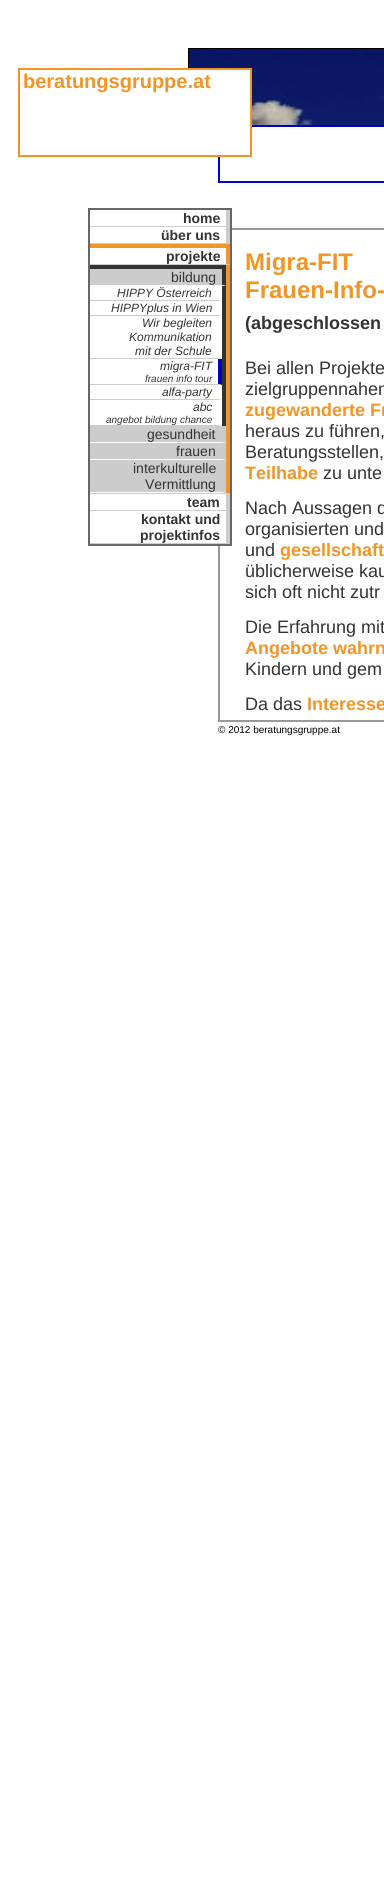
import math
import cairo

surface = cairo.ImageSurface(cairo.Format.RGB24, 384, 1884)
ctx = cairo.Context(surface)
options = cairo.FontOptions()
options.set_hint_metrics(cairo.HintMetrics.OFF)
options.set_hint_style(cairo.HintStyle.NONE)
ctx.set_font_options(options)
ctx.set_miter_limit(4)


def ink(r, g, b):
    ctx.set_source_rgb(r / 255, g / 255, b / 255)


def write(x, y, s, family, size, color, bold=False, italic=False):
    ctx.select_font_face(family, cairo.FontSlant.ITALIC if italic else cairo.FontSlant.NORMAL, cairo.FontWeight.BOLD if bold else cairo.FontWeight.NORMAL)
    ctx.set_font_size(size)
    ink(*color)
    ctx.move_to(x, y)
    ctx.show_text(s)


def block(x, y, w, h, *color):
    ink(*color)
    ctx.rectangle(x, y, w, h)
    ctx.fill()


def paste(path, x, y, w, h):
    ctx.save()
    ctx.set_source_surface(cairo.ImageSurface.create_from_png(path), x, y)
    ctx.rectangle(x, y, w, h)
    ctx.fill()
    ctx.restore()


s1 = dict(family="Liberation Sans", size=20, color=(242, 149, 38), bold=True)
s2 = dict(family="Liberation Sans", size=14, color=(51, 51, 51), bold=True)
s3 = dict(family="Liberation Sans", size=14, color=(51, 51, 51))
s4 = dict(family="Liberation Sans", size=12, color=(51, 51, 51), italic=True)
s5 = dict(family="Liberation Sans", size=10, color=(51, 51, 51), italic=True)
s6 = dict(family="Liberation Sans", size=24, color=(242, 149, 38), bold=True)
s7 = dict(family="Liberation Sans", size=18, color=(51, 51, 51), bold=True)
s8 = dict(family="Liberation Sans", size=18, color=(51, 51, 51))
s9 = dict(family="Liberation Sans", size=18, color=(242, 149, 38), bold=True)
s10 = dict(family="Liberation Sans", size=10, color=(0, 0, 0))

ink(255, 255, 255)
ctx.paint()
paste("pic1.png", 189, 49, 195, 76)
ctx.rectangle(188.5, 48.5, 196, 91)
ink(0, 0, 0)
ctx.set_line_width(1)
ctx.stroke()
block(220, 139, 164, 1, 255, 255, 255)
ctx.rectangle(219, 126, 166, 56)
ink(0, 0, 204)
ctx.set_line_width(2)
ctx.stroke()
block(188, 70, 62, 85, 255, 255, 255)
ctx.rectangle(19, 69, 232, 87)
ink(242, 149, 38)
ctx.stroke()
write(23, 88, "beratungsgruppe.at", **s1)
ctx.rectangle(219, 229, 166, 492)
ink(153, 153, 153)
ctx.stroke()
block(218, 228, 12, 315, 255, 255, 255)
ctx.rectangle(89, 209, 142, 336)
ink(102, 102, 102)
ctx.stroke()
block(226, 210, 4, 34, 204, 204, 204)
block(90, 226, 140, 1, 204, 204, 204)
write(183, 223, "home", **s2)
block(90, 243, 140, 1, 204, 204, 204)
write(161, 240, "über uns", **s2)
block(90, 244, 140, 4, 242, 149, 38)
ctx.new_path()
ctx.move_to(230, 244)
ctx.line_to(230, 265)
ctx.line_to(226, 264)
ctx.line_to(226, 248)
ctx.close_path()
ctx.fill()
ink(204, 204, 204)
ctx.new_path()
ctx.move_to(230, 265)
ctx.line_to(90, 265)
ctx.line_to(90, 264)
ctx.line_to(226, 264)
ctx.close_path()
ctx.fill()
write(166, 261, "projekte", **s2)
ink(242, 149, 38)
ctx.new_path()
ctx.move_to(230, 265)
ctx.line_to(230, 494)
ctx.line_to(226, 493)
ctx.line_to(226, 265)
ctx.close_path()
ctx.fill()
ink(204, 204, 204)
ctx.new_path()
ctx.move_to(230, 494)
ctx.line_to(90, 494)
ctx.line_to(90, 493)
ctx.line_to(226, 493)
ctx.close_path()
ctx.fill()
block(90, 269, 136, 17, 204, 204, 204)
block(90, 265, 136, 4, 51, 51, 51)
ctx.new_path()
ctx.move_to(226, 265)
ctx.line_to(226, 286)
ctx.line_to(222, 285)
ctx.line_to(222, 269)
ctx.close_path()
ctx.fill()
ink(255, 255, 255)
ctx.new_path()
ctx.move_to(226, 286)
ctx.line_to(90, 286)
ctx.line_to(90, 285)
ctx.line_to(222, 285)
ctx.close_path()
ctx.fill()
write(171, 282, "bildung", **s3)
block(222, 286, 4, 140, 51, 51, 51)
ink(204, 204, 204)
ctx.new_path()
ctx.move_to(222, 301)
ctx.line_to(90, 301)
ctx.line_to(90, 300)
ctx.line_to(218, 300)
ctx.close_path()
ctx.fill()
write(117, 297, "HIPPY Österreich", **s4)
ink(204, 204, 204)
ctx.new_path()
ctx.move_to(222, 316)
ctx.line_to(90, 316)
ctx.line_to(90, 315)
ctx.line_to(218, 315)
ctx.close_path()
ctx.fill()
write(111, 312, "HIPPYplus in Wien", **s4)
ink(204, 204, 204)
ctx.new_path()
ctx.move_to(222, 359)
ctx.line_to(90, 359)
ctx.line_to(90, 358)
ctx.line_to(218, 358)
ctx.close_path()
ctx.fill()
write(142, 327, "Wir begleiten", **s4)
write(129, 341, "Kommunikation", **s4)
write(135, 355, "mit der Schule", **s4)
ink(0, 0, 204)
ctx.new_path()
ctx.move_to(222, 359)
ctx.line_to(222, 385)
ctx.line_to(218, 384)
ctx.line_to(218, 359)
ctx.close_path()
ctx.fill()
ink(204, 204, 204)
ctx.new_path()
ctx.move_to(222, 385)
ctx.line_to(90, 385)
ctx.line_to(90, 384)
ctx.line_to(218, 384)
ctx.close_path()
ctx.fill()
write(160, 370, "migra-FIT", **s4)
write(145, 382, "frauen info tour", **s5)
ink(204, 204, 204)
ctx.new_path()
ctx.move_to(222, 400)
ctx.line_to(90, 400)
ctx.line_to(90, 399)
ctx.line_to(218, 399)
ctx.close_path()
ctx.fill()
write(162, 396, "alfa-party", **s4)
ink(204, 204, 204)
ctx.new_path()
ctx.move_to(222, 426)
ctx.line_to(90, 426)
ctx.line_to(90, 425)
ctx.line_to(218, 425)
ctx.close_path()
ctx.fill()
write(193, 411, "abc", **s4)
write(106, 423, "angebot bildung chance", **s5)
block(90, 426, 136, 67, 204, 204, 204)
ink(255, 255, 255)
ctx.new_path()
ctx.move_to(226, 443)
ctx.line_to(90, 443)
ctx.line_to(90, 442)
ctx.line_to(222, 442)
ctx.close_path()
ctx.fill()
write(147, 439, "gesundheit", **s3)
ink(255, 255, 255)
ctx.new_path()
ctx.move_to(226, 460)
ctx.line_to(90, 460)
ctx.line_to(90, 459)
ctx.line_to(222, 459)
ctx.close_path()
ctx.fill()
write(176, 456, "frauen", **s3)
ink(255, 255, 255)
ctx.new_path()
ctx.move_to(226, 493)
ctx.line_to(90, 493)
ctx.line_to(90, 492)
ctx.line_to(222, 492)
ctx.close_path()
ctx.fill()
write(133, 473, "interkulturelle", **s3)
write(145, 489, "Vermittlung", **s3)
block(226, 494, 4, 50, 204, 204, 204)
block(90, 510, 140, 1, 204, 204, 204)
write(187, 507, "team", **s2)
block(90, 543, 140, 1, 204, 204, 204)
write(141, 524, "kontakt und", **s2)
write(140, 540, "projektinfos", **s2)
write(245, 270, "Migra-FIT", **s6)
write(245, 298, "Frauen-Info-", **s6)
write(245, 329, "(abgeschlossen", **s7)
write(245, 374, "Bei allen Projekte", **s8)
write(245, 395, "zielgruppennahen", **s8)
write(245, 416, "zugewanderte Fr", **s9)
write(245, 437, "heraus zu führen,", **s8)
write(245, 458, "Beratungsstellen,", **s8)
write(245, 479, "Teilhabe", **s9)
write(323, 479, "zu unte", **s8)
write(245, 514, "Nach Aussagen d", **s8)
write(245, 535, "organisierten und", **s8)
write(245, 556, "und", **s8)
write(280, 556, "gesellschaft", **s9)
write(245, 577, "üblicherweise kau", **s8)
write(245, 598, "sich oft nicht zutr", **s8)
write(245, 633, "Die Erfahrung mit", **s8)
write(245, 654, "Angebote wahrn", **s9)
write(245, 675, "Kindern und gem", **s8)
write(245, 710, "Da das", **s8)
write(307, 710, "Interesse", **s9)
write(218, 733, "© 2012 beratungsgruppe.at", **s10)
surface.write_to_png("screenshot.png")
